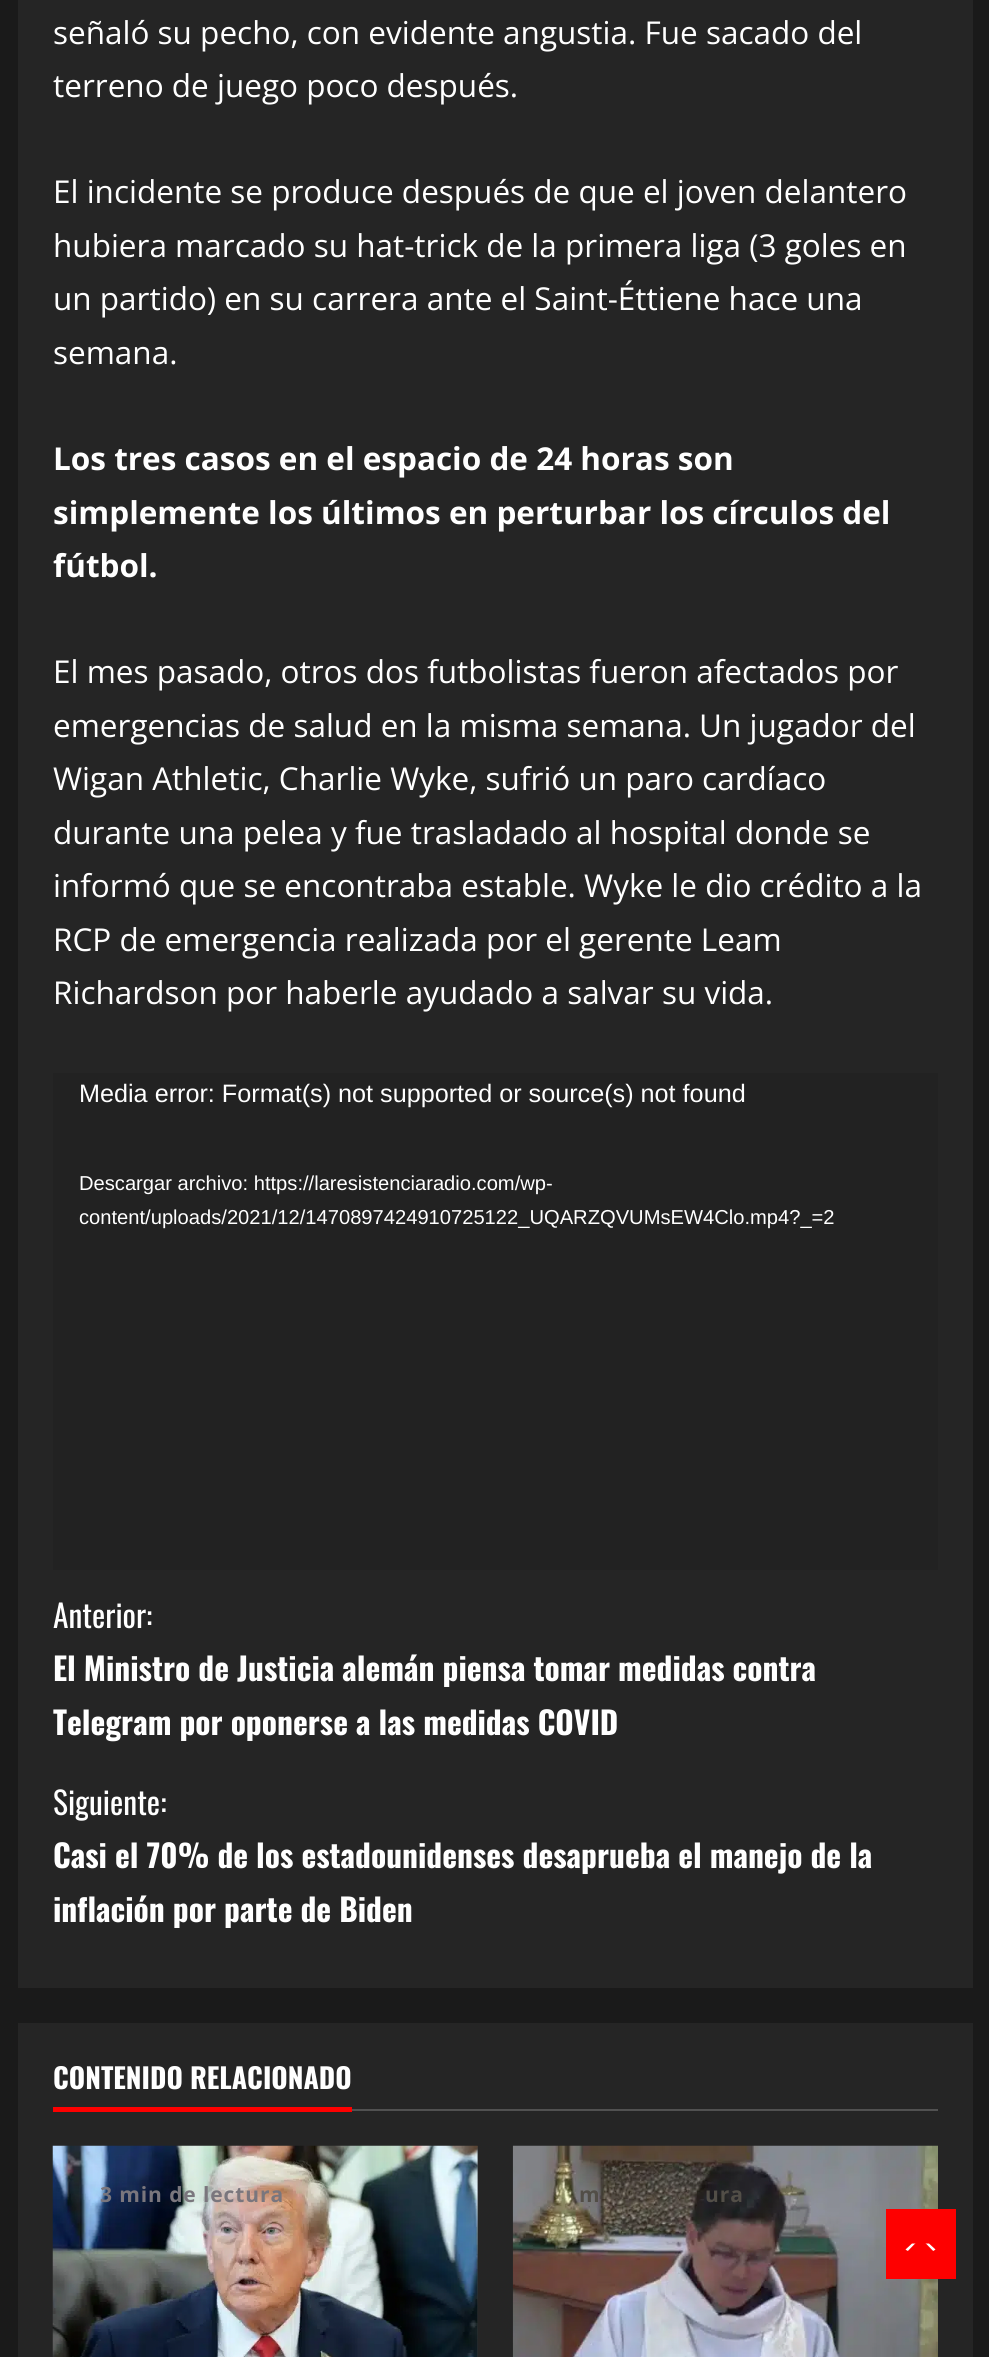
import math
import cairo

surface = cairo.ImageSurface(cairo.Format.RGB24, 989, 2357)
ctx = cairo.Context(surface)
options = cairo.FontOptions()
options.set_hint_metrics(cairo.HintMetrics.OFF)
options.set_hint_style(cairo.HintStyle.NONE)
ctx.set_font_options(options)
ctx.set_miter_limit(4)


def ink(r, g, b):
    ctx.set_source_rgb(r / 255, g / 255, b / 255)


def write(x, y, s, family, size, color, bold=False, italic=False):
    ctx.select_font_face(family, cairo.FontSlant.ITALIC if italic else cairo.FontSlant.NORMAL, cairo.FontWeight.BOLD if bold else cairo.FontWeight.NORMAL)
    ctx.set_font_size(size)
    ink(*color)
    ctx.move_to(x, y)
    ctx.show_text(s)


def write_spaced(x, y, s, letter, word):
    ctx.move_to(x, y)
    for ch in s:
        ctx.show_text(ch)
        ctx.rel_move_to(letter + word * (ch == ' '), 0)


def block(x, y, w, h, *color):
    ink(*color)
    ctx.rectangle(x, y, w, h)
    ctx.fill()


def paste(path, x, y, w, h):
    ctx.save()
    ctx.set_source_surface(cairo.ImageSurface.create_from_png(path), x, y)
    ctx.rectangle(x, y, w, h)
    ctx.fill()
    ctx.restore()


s1 = dict(family="Open Sans", size=31.5, color=(255, 255, 255))
s2 = dict(family="Open Sans", size=31.5, color=(255, 255, 255), bold=True)
s3 = dict(family="Liberation Sans", size=25.2, color=(255, 255, 255))
s4 = dict(family="Liberation Sans", size=20.15, color=(255, 255, 255))
s5 = dict(family="Oswald", size=31.5, color=(255, 255, 255))
s6 = dict(family="Oswald", size=31.5, color=(255, 255, 255), bold=True)
s7 = dict(family="Oswald", size=28, color=(255, 255, 255), bold=True)

ink(26, 26, 26)
ctx.paint()
block(18, 0, 955, 1988, 37, 37, 37)
write(53, 44, "señaló su pecho, con evidente angustia. Fue sacado del", **s1)
write(53, 97, "terreno de juego poco después.", **s1)
write(53, 203, "El incidente se produce después de que el joven delantero", **s1)
write(53, 257, "hubiera marcado su hat-trick de la primera liga (3 goles en", **s1)
write(53, 310, "un partido) en su carrera ante el Saint-Éttiene hace una", **s1)
write(53, 364, "semana.", **s1)
write(53, 470, "Los tres casos en el espacio de 24 horas son", **s2)
write(53, 524, "simplemente los últimos en perturbar los círculos del", **s2)
write(53, 577, "fútbol.", **s2)
write(53, 683, "El mes pasado, otros dos futbolistas fueron afectados por", **s1)
write(53, 737, "emergencias de salud en la misma semana. Un jugador del", **s1)
write(53, 790, "Wigan Athletic, Charlie Wyke, sufrió un paro cardíaco", **s1)
write(53, 844, "durante una pelea y fue trasladado al hospital donde se", **s1)
write(53, 897, "informó que se encontraba estable. Wyke le dio crédito a la", **s1)
write(53, 951, "RCP de emergencia realizada por el gerente Leam", **s1)
write(53, 1004, "Richardson por haberle ayudado a salvar su vida.", **s1)
block(53, 1073, 885, 497, 34, 34, 34)
write(79, 1102, "Media error: Format(s) not supported or source(s) not found", **s3)
write(79, 1190, "Descargar archivo: https://laresistenciaradio.com/wp-", **s4)
write(79, 1224, "content/uploads/2021/12/1470897424910725122_UQARZQVUMsEW4Clo.mp4?_=2", **s4)
write(53, 1628, "Anterior:", **s5)
write(53, 1681, "El Ministro de Justicia alemán piensa tomar medidas contra", **s6)
write(53, 1735, "Telegram por oponerse a las medidas COVID", **s6)
write(53, 1815, "Siguiente:", **s5)
write(53, 1868, "Casi el 70% de los estadounidenses desaprueba el manejo de la", **s6)
write(53, 1922, "inflación por parte de Biden", **s6)
block(18, 2023, 955, 334, 37, 37, 37)
block(352, 2109, 586, 2, 81, 81, 81)
write(53, 2089, "CONTENIDO RELACIONADO", **s7)
block(53, 2107, 299, 5, 254, 0, 0)
block(477, 2146, 1, 211, 58, 58, 58)
paste("pic1.png", 52, 2145, 426, 212)
ctx.select_font_face("Open Sans", cairo.FontSlant.NORMAL, cairo.FontWeight.BOLD)
ctx.set_font_size(21)
ink(122, 118, 125)
write_spaced(100, 2202, "3 min de lectura", 0.9, 0)
paste("pic2.png", 512, 2145, 426, 212)
ink(82, 78, 71)
write_spaced(579, 2202, "m", 0.9, 0)
write_spaced(705, 2202, "ura", 0.9, 0)
block(886, 2209, 70, 70, 254, 0, 0)
ink(255, 255, 255)
ctx.new_path()
ctx.move_to(935.5, 2249.5)
ctx.curve_to(931.5, 2253, 925, 2252, 920.5, 2252)
ctx.curve_to(916, 2252, 909.5, 2253, 905.5, 2249.5)
ctx.line_to(912, 2243.5)
ctx.line_to(929, 2243.5)
ctx.close_path()
ctx.fill()
ink(254, 0, 0)
ctx.new_path()
ctx.move_to(938, 2256)
ctx.line_to(903, 2256)
ctx.line_to(920.5, 2238)
ctx.close_path()
ctx.fill()
surface.write_to_png("screenshot.png")
